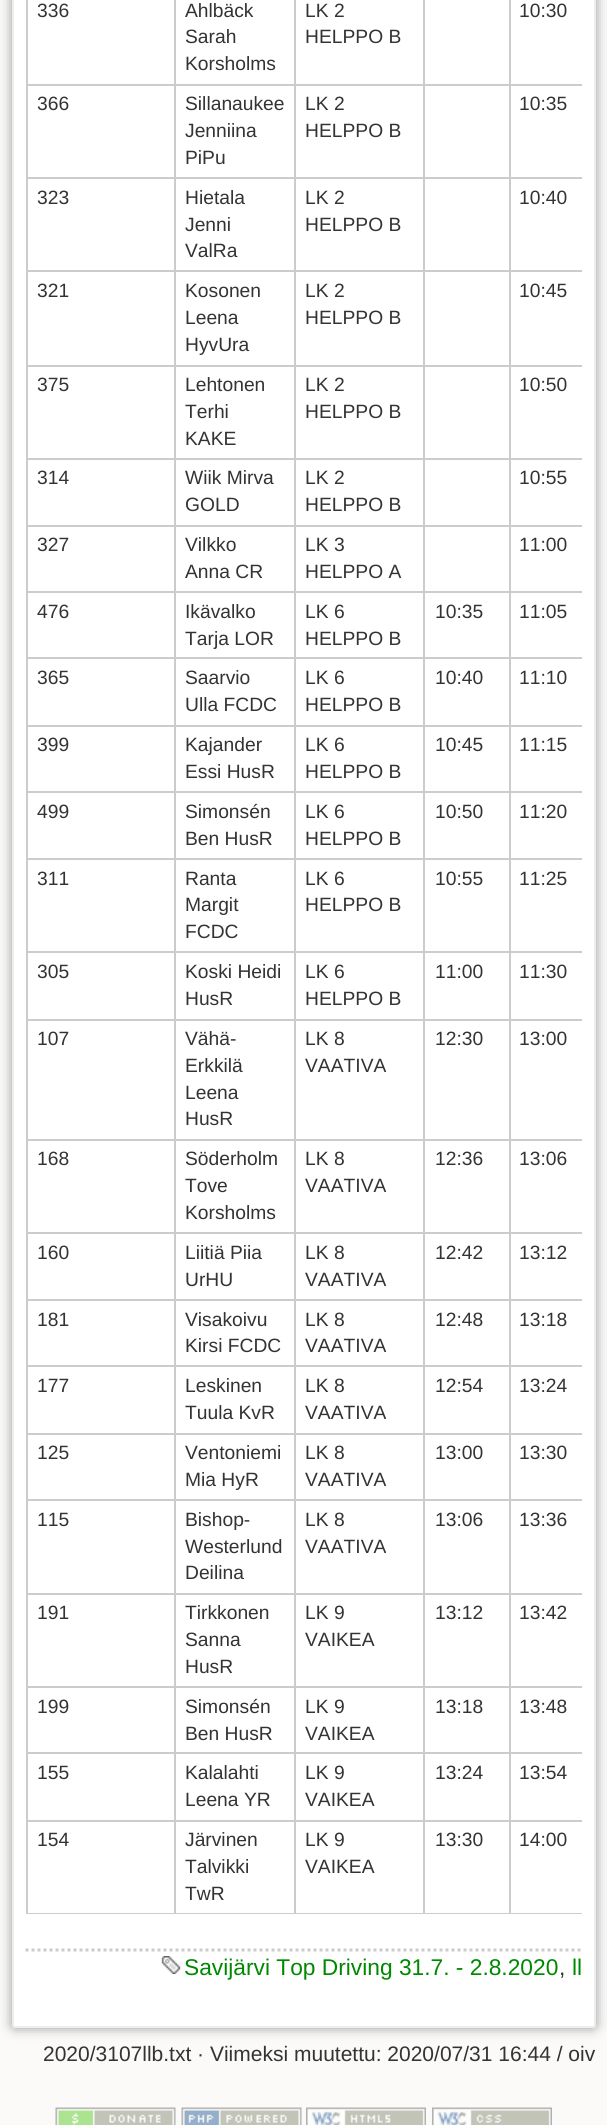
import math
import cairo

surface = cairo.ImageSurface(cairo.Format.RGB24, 607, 2125)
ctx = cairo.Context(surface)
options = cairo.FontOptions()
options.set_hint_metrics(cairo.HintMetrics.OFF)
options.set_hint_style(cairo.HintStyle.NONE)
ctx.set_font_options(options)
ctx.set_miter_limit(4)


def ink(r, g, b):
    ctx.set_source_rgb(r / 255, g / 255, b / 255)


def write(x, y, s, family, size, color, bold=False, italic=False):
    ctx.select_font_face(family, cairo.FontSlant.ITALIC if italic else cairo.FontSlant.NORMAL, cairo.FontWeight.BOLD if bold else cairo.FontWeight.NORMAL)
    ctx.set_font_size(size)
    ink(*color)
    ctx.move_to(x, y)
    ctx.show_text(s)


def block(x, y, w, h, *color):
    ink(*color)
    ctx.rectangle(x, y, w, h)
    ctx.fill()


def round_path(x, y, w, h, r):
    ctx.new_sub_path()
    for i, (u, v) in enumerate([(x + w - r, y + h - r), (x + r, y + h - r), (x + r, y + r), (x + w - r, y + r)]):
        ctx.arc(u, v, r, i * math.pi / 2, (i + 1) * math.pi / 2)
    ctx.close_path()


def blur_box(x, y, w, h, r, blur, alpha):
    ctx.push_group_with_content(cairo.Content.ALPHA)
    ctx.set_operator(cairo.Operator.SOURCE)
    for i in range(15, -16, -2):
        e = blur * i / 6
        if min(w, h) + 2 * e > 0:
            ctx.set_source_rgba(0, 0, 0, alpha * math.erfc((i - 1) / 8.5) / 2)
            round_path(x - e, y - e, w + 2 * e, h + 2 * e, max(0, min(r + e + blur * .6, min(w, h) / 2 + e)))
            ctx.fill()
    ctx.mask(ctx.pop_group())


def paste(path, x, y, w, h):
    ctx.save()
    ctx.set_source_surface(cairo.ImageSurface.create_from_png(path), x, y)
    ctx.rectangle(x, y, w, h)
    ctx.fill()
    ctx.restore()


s1 = dict(family="Liberation Sans", size=19.25, color=(51, 51, 51))
s2 = dict(family="Liberation Sans", size=22.75, color=(0, 136, 0))
s3 = dict(family="Liberation Sans", size=22.75, color=(51, 51, 51))
s4 = dict(family="Liberation Sans", size=21, color=(51, 51, 51))

ink(251, 250, 249)
ctx.paint()
ink(153, 153, 153)
blur_box(12, -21, 584, 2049, 3, 6, 1)
ink(255, 255, 255)
round_path(13, -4, 582, 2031, 2)
ctx.fill_preserve()
ink(238, 238, 238)
ctx.stroke()
block(26, 1913, 556, 1, 204, 204, 204)
block(26, 0, 2, 1914, 204, 204, 204)
write(37, 17, "336", **s1)
block(509, 84, 73, 2, 204, 204, 204)
block(509, 177, 73, 2, 204, 204, 204)
block(509, 270, 73, 2, 204, 204, 204)
block(509, 365, 73, 2, 204, 204, 204)
block(509, 458, 73, 2, 204, 204, 204)
block(509, 525, 73, 2, 204, 204, 204)
block(509, 591, 73, 2, 204, 204, 204)
block(509, 657, 73, 2, 204, 204, 204)
block(509, 725, 73, 2, 204, 204, 204)
block(509, 791, 73, 2, 204, 204, 204)
block(509, 858, 73, 2, 204, 204, 204)
block(509, 951, 73, 2, 204, 204, 204)
block(509, 1019, 73, 2, 204, 204, 204)
block(509, 1139, 73, 2, 204, 204, 204)
block(509, 1232, 73, 2, 204, 204, 204)
block(509, 1299, 73, 2, 204, 204, 204)
block(509, 1365, 73, 2, 204, 204, 204)
block(509, 1433, 73, 2, 204, 204, 204)
block(509, 1499, 73, 2, 204, 204, 204)
block(509, 1593, 73, 2, 204, 204, 204)
block(509, 1686, 73, 2, 204, 204, 204)
block(509, 1752, 73, 2, 204, 204, 204)
block(509, 1820, 73, 2, 204, 204, 204)
block(509, 1820, 2, 94, 204, 204, 204)
block(423, 1820, 87, 2, 204, 204, 204)
block(509, 1752, 2, 69, 204, 204, 204)
block(423, 1752, 87, 2, 204, 204, 204)
block(509, 1686, 2, 68, 204, 204, 204)
block(423, 1686, 87, 2, 204, 204, 204)
block(509, 1593, 2, 95, 204, 204, 204)
block(423, 1593, 87, 2, 204, 204, 204)
block(509, 1499, 2, 96, 204, 204, 204)
block(423, 1499, 87, 2, 204, 204, 204)
block(509, 1433, 2, 67, 204, 204, 204)
block(423, 1433, 87, 2, 204, 204, 204)
block(509, 1365, 2, 69, 204, 204, 204)
block(423, 1365, 87, 2, 204, 204, 204)
block(509, 1299, 2, 68, 204, 204, 204)
block(423, 1299, 87, 2, 204, 204, 204)
block(509, 1232, 2, 69, 204, 204, 204)
block(423, 1232, 87, 2, 204, 204, 204)
block(509, 1139, 2, 94, 204, 204, 204)
block(423, 1139, 87, 2, 204, 204, 204)
block(509, 1019, 2, 121, 204, 204, 204)
block(423, 1019, 87, 2, 204, 204, 204)
block(509, 951, 2, 69, 204, 204, 204)
block(423, 951, 87, 2, 204, 204, 204)
block(509, 858, 2, 95, 204, 204, 204)
block(423, 858, 87, 2, 204, 204, 204)
block(509, 791, 2, 69, 204, 204, 204)
block(423, 791, 87, 2, 204, 204, 204)
block(509, 725, 2, 67, 204, 204, 204)
block(423, 725, 87, 2, 204, 204, 204)
block(509, 657, 2, 69, 204, 204, 204)
block(423, 657, 87, 2, 204, 204, 204)
block(509, 591, 2, 68, 204, 204, 204)
block(423, 591, 87, 2, 204, 204, 204)
block(509, 525, 2, 68, 204, 204, 204)
block(423, 525, 87, 2, 204, 204, 204)
block(509, 458, 2, 69, 204, 204, 204)
block(423, 458, 87, 2, 204, 204, 204)
block(509, 365, 2, 94, 204, 204, 204)
block(423, 365, 87, 2, 204, 204, 204)
block(509, 270, 2, 96, 204, 204, 204)
block(423, 270, 87, 2, 204, 204, 204)
block(509, 177, 2, 95, 204, 204, 204)
block(423, 177, 87, 2, 204, 204, 204)
block(509, 84, 2, 95, 204, 204, 204)
block(423, 84, 87, 2, 204, 204, 204)
block(423, 1820, 2, 94, 204, 204, 204)
block(294, 1820, 131, 2, 204, 204, 204)
block(423, 1752, 2, 69, 204, 204, 204)
block(294, 1752, 131, 2, 204, 204, 204)
block(423, 1686, 2, 68, 204, 204, 204)
block(294, 1686, 131, 2, 204, 204, 204)
block(423, 1593, 2, 95, 204, 204, 204)
block(294, 1593, 131, 2, 204, 204, 204)
block(423, 1499, 2, 96, 204, 204, 204)
block(294, 1499, 131, 2, 204, 204, 204)
block(423, 1433, 2, 67, 204, 204, 204)
block(294, 1433, 131, 2, 204, 204, 204)
block(423, 1365, 2, 69, 204, 204, 204)
block(294, 1365, 131, 2, 204, 204, 204)
block(423, 1299, 2, 68, 204, 204, 204)
block(294, 1299, 131, 2, 204, 204, 204)
block(423, 1232, 2, 69, 204, 204, 204)
block(294, 1232, 131, 2, 204, 204, 204)
block(423, 1139, 2, 94, 204, 204, 204)
block(294, 1139, 131, 2, 204, 204, 204)
block(423, 1019, 2, 121, 204, 204, 204)
block(294, 1019, 131, 2, 204, 204, 204)
block(423, 951, 2, 69, 204, 204, 204)
block(294, 951, 131, 2, 204, 204, 204)
block(423, 858, 2, 95, 204, 204, 204)
block(294, 858, 131, 2, 204, 204, 204)
block(423, 791, 2, 69, 204, 204, 204)
block(294, 791, 131, 2, 204, 204, 204)
block(423, 725, 2, 67, 204, 204, 204)
block(294, 725, 131, 2, 204, 204, 204)
block(423, 657, 2, 69, 204, 204, 204)
block(294, 657, 131, 2, 204, 204, 204)
block(423, 591, 2, 68, 204, 204, 204)
block(294, 591, 131, 2, 204, 204, 204)
block(423, 525, 2, 68, 204, 204, 204)
block(294, 525, 131, 2, 204, 204, 204)
block(423, 458, 2, 69, 204, 204, 204)
block(294, 458, 131, 2, 204, 204, 204)
block(423, 365, 2, 94, 204, 204, 204)
block(294, 365, 131, 2, 204, 204, 204)
block(423, 270, 2, 96, 204, 204, 204)
block(294, 270, 131, 2, 204, 204, 204)
block(423, 177, 2, 95, 204, 204, 204)
block(294, 177, 131, 2, 204, 204, 204)
block(423, 84, 2, 95, 204, 204, 204)
block(294, 84, 131, 2, 204, 204, 204)
block(294, 1820, 2, 94, 204, 204, 204)
block(174, 1820, 122, 2, 204, 204, 204)
block(294, 1752, 2, 69, 204, 204, 204)
block(174, 1752, 122, 2, 204, 204, 204)
block(294, 1686, 2, 68, 204, 204, 204)
block(174, 1686, 122, 2, 204, 204, 204)
block(294, 1593, 2, 95, 204, 204, 204)
block(174, 1593, 122, 2, 204, 204, 204)
block(294, 1499, 2, 96, 204, 204, 204)
block(174, 1499, 122, 2, 204, 204, 204)
block(294, 1433, 2, 67, 204, 204, 204)
block(174, 1433, 122, 2, 204, 204, 204)
block(294, 1365, 2, 69, 204, 204, 204)
block(174, 1365, 122, 2, 204, 204, 204)
block(294, 1299, 2, 68, 204, 204, 204)
block(174, 1299, 122, 2, 204, 204, 204)
block(294, 1232, 2, 69, 204, 204, 204)
block(174, 1232, 122, 2, 204, 204, 204)
block(294, 1139, 2, 94, 204, 204, 204)
block(174, 1139, 122, 2, 204, 204, 204)
block(294, 1019, 2, 121, 204, 204, 204)
block(174, 1019, 122, 2, 204, 204, 204)
block(294, 951, 2, 69, 204, 204, 204)
block(174, 951, 122, 2, 204, 204, 204)
block(294, 858, 2, 95, 204, 204, 204)
block(174, 858, 122, 2, 204, 204, 204)
block(294, 791, 2, 69, 204, 204, 204)
block(174, 791, 122, 2, 204, 204, 204)
block(294, 725, 2, 67, 204, 204, 204)
block(174, 725, 122, 2, 204, 204, 204)
block(294, 657, 2, 69, 204, 204, 204)
block(174, 657, 122, 2, 204, 204, 204)
block(294, 591, 2, 68, 204, 204, 204)
block(174, 591, 122, 2, 204, 204, 204)
block(294, 525, 2, 68, 204, 204, 204)
block(174, 525, 122, 2, 204, 204, 204)
block(294, 458, 2, 69, 204, 204, 204)
block(174, 458, 122, 2, 204, 204, 204)
block(294, 365, 2, 94, 204, 204, 204)
block(174, 365, 122, 2, 204, 204, 204)
block(294, 270, 2, 96, 204, 204, 204)
block(174, 270, 122, 2, 204, 204, 204)
block(294, 177, 2, 95, 204, 204, 204)
block(174, 177, 122, 2, 204, 204, 204)
block(294, 84, 2, 95, 204, 204, 204)
block(174, 84, 122, 2, 204, 204, 204)
block(174, 1820, 2, 94, 204, 204, 204)
block(26, 1820, 150, 2, 204, 204, 204)
block(174, 1752, 2, 69, 204, 204, 204)
block(26, 1752, 150, 2, 204, 204, 204)
block(174, 1686, 2, 68, 204, 204, 204)
block(26, 1686, 150, 2, 204, 204, 204)
block(174, 1593, 2, 95, 204, 204, 204)
block(26, 1593, 150, 2, 204, 204, 204)
block(174, 1499, 2, 96, 204, 204, 204)
block(26, 1499, 150, 2, 204, 204, 204)
block(174, 1433, 2, 67, 204, 204, 204)
block(26, 1433, 150, 2, 204, 204, 204)
block(174, 1365, 2, 69, 204, 204, 204)
block(26, 1365, 150, 2, 204, 204, 204)
block(174, 1299, 2, 68, 204, 204, 204)
block(26, 1299, 150, 2, 204, 204, 204)
block(174, 1232, 2, 69, 204, 204, 204)
block(26, 1232, 150, 2, 204, 204, 204)
block(174, 1139, 2, 94, 204, 204, 204)
block(26, 1139, 150, 2, 204, 204, 204)
block(174, 1019, 2, 121, 204, 204, 204)
block(26, 1019, 150, 2, 204, 204, 204)
block(174, 951, 2, 69, 204, 204, 204)
block(26, 951, 150, 2, 204, 204, 204)
block(174, 858, 2, 95, 204, 204, 204)
block(26, 858, 150, 2, 204, 204, 204)
block(174, 791, 2, 69, 204, 204, 204)
block(26, 791, 150, 2, 204, 204, 204)
block(174, 725, 2, 67, 204, 204, 204)
block(26, 725, 150, 2, 204, 204, 204)
block(174, 657, 2, 69, 204, 204, 204)
block(26, 657, 150, 2, 204, 204, 204)
block(174, 591, 2, 68, 204, 204, 204)
block(26, 591, 150, 2, 204, 204, 204)
block(174, 525, 2, 68, 204, 204, 204)
block(26, 525, 150, 2, 204, 204, 204)
block(174, 458, 2, 69, 204, 204, 204)
block(26, 458, 150, 2, 204, 204, 204)
block(174, 365, 2, 94, 204, 204, 204)
block(26, 365, 150, 2, 204, 204, 204)
block(174, 270, 2, 96, 204, 204, 204)
block(26, 270, 150, 2, 204, 204, 204)
block(174, 177, 2, 95, 204, 204, 204)
block(26, 177, 150, 2, 204, 204, 204)
block(174, 84, 2, 95, 204, 204, 204)
block(26, 84, 150, 2, 204, 204, 204)
block(174, 0, 2, 86, 204, 204, 204)
write(185, 17, "Ahlbäck", **s1)
write(185, 43, "Sarah", **s1)
write(185, 70, "Korsholms", **s1)
block(294, 0, 2, 86, 204, 204, 204)
write(305, 17, "LK 2", **s1)
write(305, 43, "HELPPO B", **s1)
block(423, 0, 2, 86, 204, 204, 204)
block(509, 0, 2, 86, 204, 204, 204)
write(519, 17, "10:30", **s1)
write(37, 110, "366", **s1)
write(185, 110, "Sillanaukee", **s1)
write(185, 137, "Jenniina", **s1)
write(185, 164, "PiPu", **s1)
write(305, 110, "LK 2", **s1)
write(305, 137, "HELPPO B", **s1)
write(519, 110, "10:35", **s1)
write(37, 204, "323", **s1)
write(185, 204, "Hietala", **s1)
write(185, 231, "Jenni", **s1)
write(185, 257, "ValRa", **s1)
write(305, 204, "LK 2", **s1)
write(305, 231, "HELPPO B", **s1)
write(519, 204, "10:40", **s1)
write(37, 297, "321", **s1)
write(185, 297, "Kosonen", **s1)
write(185, 324, "Leena", **s1)
write(185, 351, "HyvUra", **s1)
write(305, 297, "LK 2", **s1)
write(305, 324, "HELPPO B", **s1)
write(519, 297, "10:45", **s1)
write(37, 391, "375", **s1)
write(185, 391, "Lehtonen", **s1)
write(185, 418, "Terhi", **s1)
write(185, 445, "KAKE", **s1)
write(305, 391, "LK 2", **s1)
write(305, 418, "HELPPO B", **s1)
write(519, 391, "10:50", **s1)
write(37, 484, "314", **s1)
write(185, 484, "Wiik Mirva", **s1)
write(185, 511, "GOLD", **s1)
write(305, 484, "LK 2", **s1)
write(305, 511, "HELPPO B", **s1)
write(519, 484, "10:55", **s1)
write(37, 551, "327", **s1)
write(185, 551, "Vilkko", **s1)
write(185, 578, "Anna CR", **s1)
write(305, 551, "LK 3", **s1)
write(305, 578, "HELPPO A", **s1)
write(519, 551, "11:00", **s1)
write(37, 618, "476", **s1)
write(185, 618, "Ikävalko", **s1)
write(185, 645, "Tarja LOR", **s1)
write(305, 618, "LK 6", **s1)
write(305, 645, "HELPPO B", **s1)
write(435, 618, "10:35", **s1)
write(519, 618, "11:05", **s1)
write(37, 684, "365", **s1)
write(185, 684, "Saarvio", **s1)
write(185, 711, "Ulla FCDC", **s1)
write(305, 684, "LK 6", **s1)
write(305, 711, "HELPPO B", **s1)
write(435, 684, "10:40", **s1)
write(519, 684, "11:10", **s1)
write(37, 751, "399", **s1)
write(185, 751, "Kajander", **s1)
write(185, 778, "Essi HusR", **s1)
write(305, 751, "LK 6", **s1)
write(305, 778, "HELPPO B", **s1)
write(435, 751, "10:45", **s1)
write(519, 751, "11:15", **s1)
write(37, 818, "499", **s1)
write(185, 818, "Simonsén", **s1)
write(185, 845, "Ben HusR", **s1)
write(305, 818, "LK 6", **s1)
write(305, 845, "HELPPO B", **s1)
write(435, 818, "10:50", **s1)
write(519, 818, "11:20", **s1)
write(37, 885, "311", **s1)
write(185, 885, "Ranta", **s1)
write(185, 911, "Margit", **s1)
write(185, 938, "FCDC", **s1)
write(305, 885, "LK 6", **s1)
write(305, 911, "HELPPO B", **s1)
write(435, 885, "10:55", **s1)
write(519, 885, "11:25", **s1)
write(37, 978, "305", **s1)
write(185, 978, "Koski Heidi", **s1)
write(185, 1005, "HusR", **s1)
write(305, 978, "LK 6", **s1)
write(305, 1005, "HELPPO B", **s1)
write(435, 978, "11:00", **s1)
write(519, 978, "11:30", **s1)
write(37, 1045, "107", **s1)
write(185, 1045, "Vähä-", **s1)
write(185, 1072, "Erkkilä", **s1)
write(185, 1099, "Leena", **s1)
write(185, 1125, "HusR", **s1)
write(305, 1045, "LK 8", **s1)
write(305, 1072, "VAATIVA", **s1)
write(435, 1045, "12:30", **s1)
write(519, 1045, "13:00", **s1)
write(37, 1165, "168", **s1)
write(185, 1165, "Söderholm", **s1)
write(185, 1192, "Tove", **s1)
write(185, 1219, "Korsholms", **s1)
write(305, 1165, "LK 8", **s1)
write(305, 1192, "VAATIVA", **s1)
write(435, 1165, "12:36", **s1)
write(519, 1165, "13:06", **s1)
write(37, 1259, "160", **s1)
write(185, 1259, "Liitiä Piia", **s1)
write(185, 1286, "UrHU", **s1)
write(305, 1259, "LK 8", **s1)
write(305, 1286, "VAATIVA", **s1)
write(435, 1259, "12:42", **s1)
write(519, 1259, "13:12", **s1)
write(37, 1326, "181", **s1)
write(185, 1326, "Visakoivu", **s1)
write(185, 1352, "Kirsi FCDC", **s1)
write(305, 1326, "LK 8", **s1)
write(305, 1352, "VAATIVA", **s1)
write(435, 1326, "12:48", **s1)
write(519, 1326, "13:18", **s1)
write(37, 1392, "177", **s1)
write(185, 1392, "Leskinen", **s1)
write(185, 1419, "Tuula KvR", **s1)
write(305, 1392, "LK 8", **s1)
write(305, 1419, "VAATIVA", **s1)
write(435, 1392, "12:54", **s1)
write(519, 1392, "13:24", **s1)
write(37, 1459, "125", **s1)
write(185, 1459, "Ventoniemi", **s1)
write(185, 1486, "Mia HyR", **s1)
write(305, 1459, "LK 8", **s1)
write(305, 1486, "VAATIVA", **s1)
write(435, 1459, "13:00", **s1)
write(519, 1459, "13:30", **s1)
write(37, 1526, "115", **s1)
write(185, 1526, "Bishop-", **s1)
write(185, 1553, "Westerlund", **s1)
write(185, 1579, "Deilina", **s1)
write(305, 1526, "LK 8", **s1)
write(305, 1553, "VAATIVA", **s1)
write(435, 1526, "13:06", **s1)
write(519, 1526, "13:36", **s1)
write(37, 1619, "191", **s1)
write(185, 1619, "Tirkkonen", **s1)
write(185, 1646, "Sanna", **s1)
write(185, 1673, "HusR", **s1)
write(305, 1619, "LK 9", **s1)
write(305, 1646, "VAIKEA", **s1)
write(435, 1619, "13:12", **s1)
write(519, 1619, "13:42", **s1)
write(37, 1713, "199", **s1)
write(185, 1713, "Simonsén", **s1)
write(185, 1740, "Ben HusR", **s1)
write(305, 1713, "LK 9", **s1)
write(305, 1740, "VAIKEA", **s1)
write(435, 1713, "13:18", **s1)
write(519, 1713, "13:48", **s1)
write(37, 1779, "155", **s1)
write(185, 1779, "Kalalahti", **s1)
write(185, 1806, "Leena YR", **s1)
write(305, 1779, "LK 9", **s1)
write(305, 1806, "VAIKEA", **s1)
write(435, 1779, "13:24", **s1)
write(519, 1779, "13:54", **s1)
write(37, 1846, "154", **s1)
write(185, 1846, "Järvinen", **s1)
write(185, 1873, "Talvikki", **s1)
write(185, 1900, "TwR", **s1)
write(305, 1846, "LK 9", **s1)
write(305, 1873, "VAIKEA", **s1)
write(435, 1846, "13:30", **s1)
write(519, 1846, "14:00", **s1)
ctx.new_path()
ctx.move_to(25.5, 1950)
ctx.line_to(582, 1950)
ink(204, 204, 204)
ctx.set_line_width(3)
ctx.set_dash([3, 3])
ctx.stroke()
paste("pic1.png", 161, 1956, 20, 18)
write(184, 1975, "Savijärvi Top Driving 31.7. - 2.8.2020", **s2)
write(559, 1975, ",", **s3)
write(572, 1975, "ll", **s2)
write(43, 2061, "2020/3107llb.txt · Viimeksi muutettu: 2020/07/31 16:44 / oiv", **s4)
paste("pic2.png", 55, 2107, 121, 18)
paste("pic3.png", 181, 2107, 121, 18)
paste("pic4.png", 306, 2107, 120, 18)
paste("pic5.png", 432, 2107, 120, 18)
surface.write_to_png("screenshot.png")
